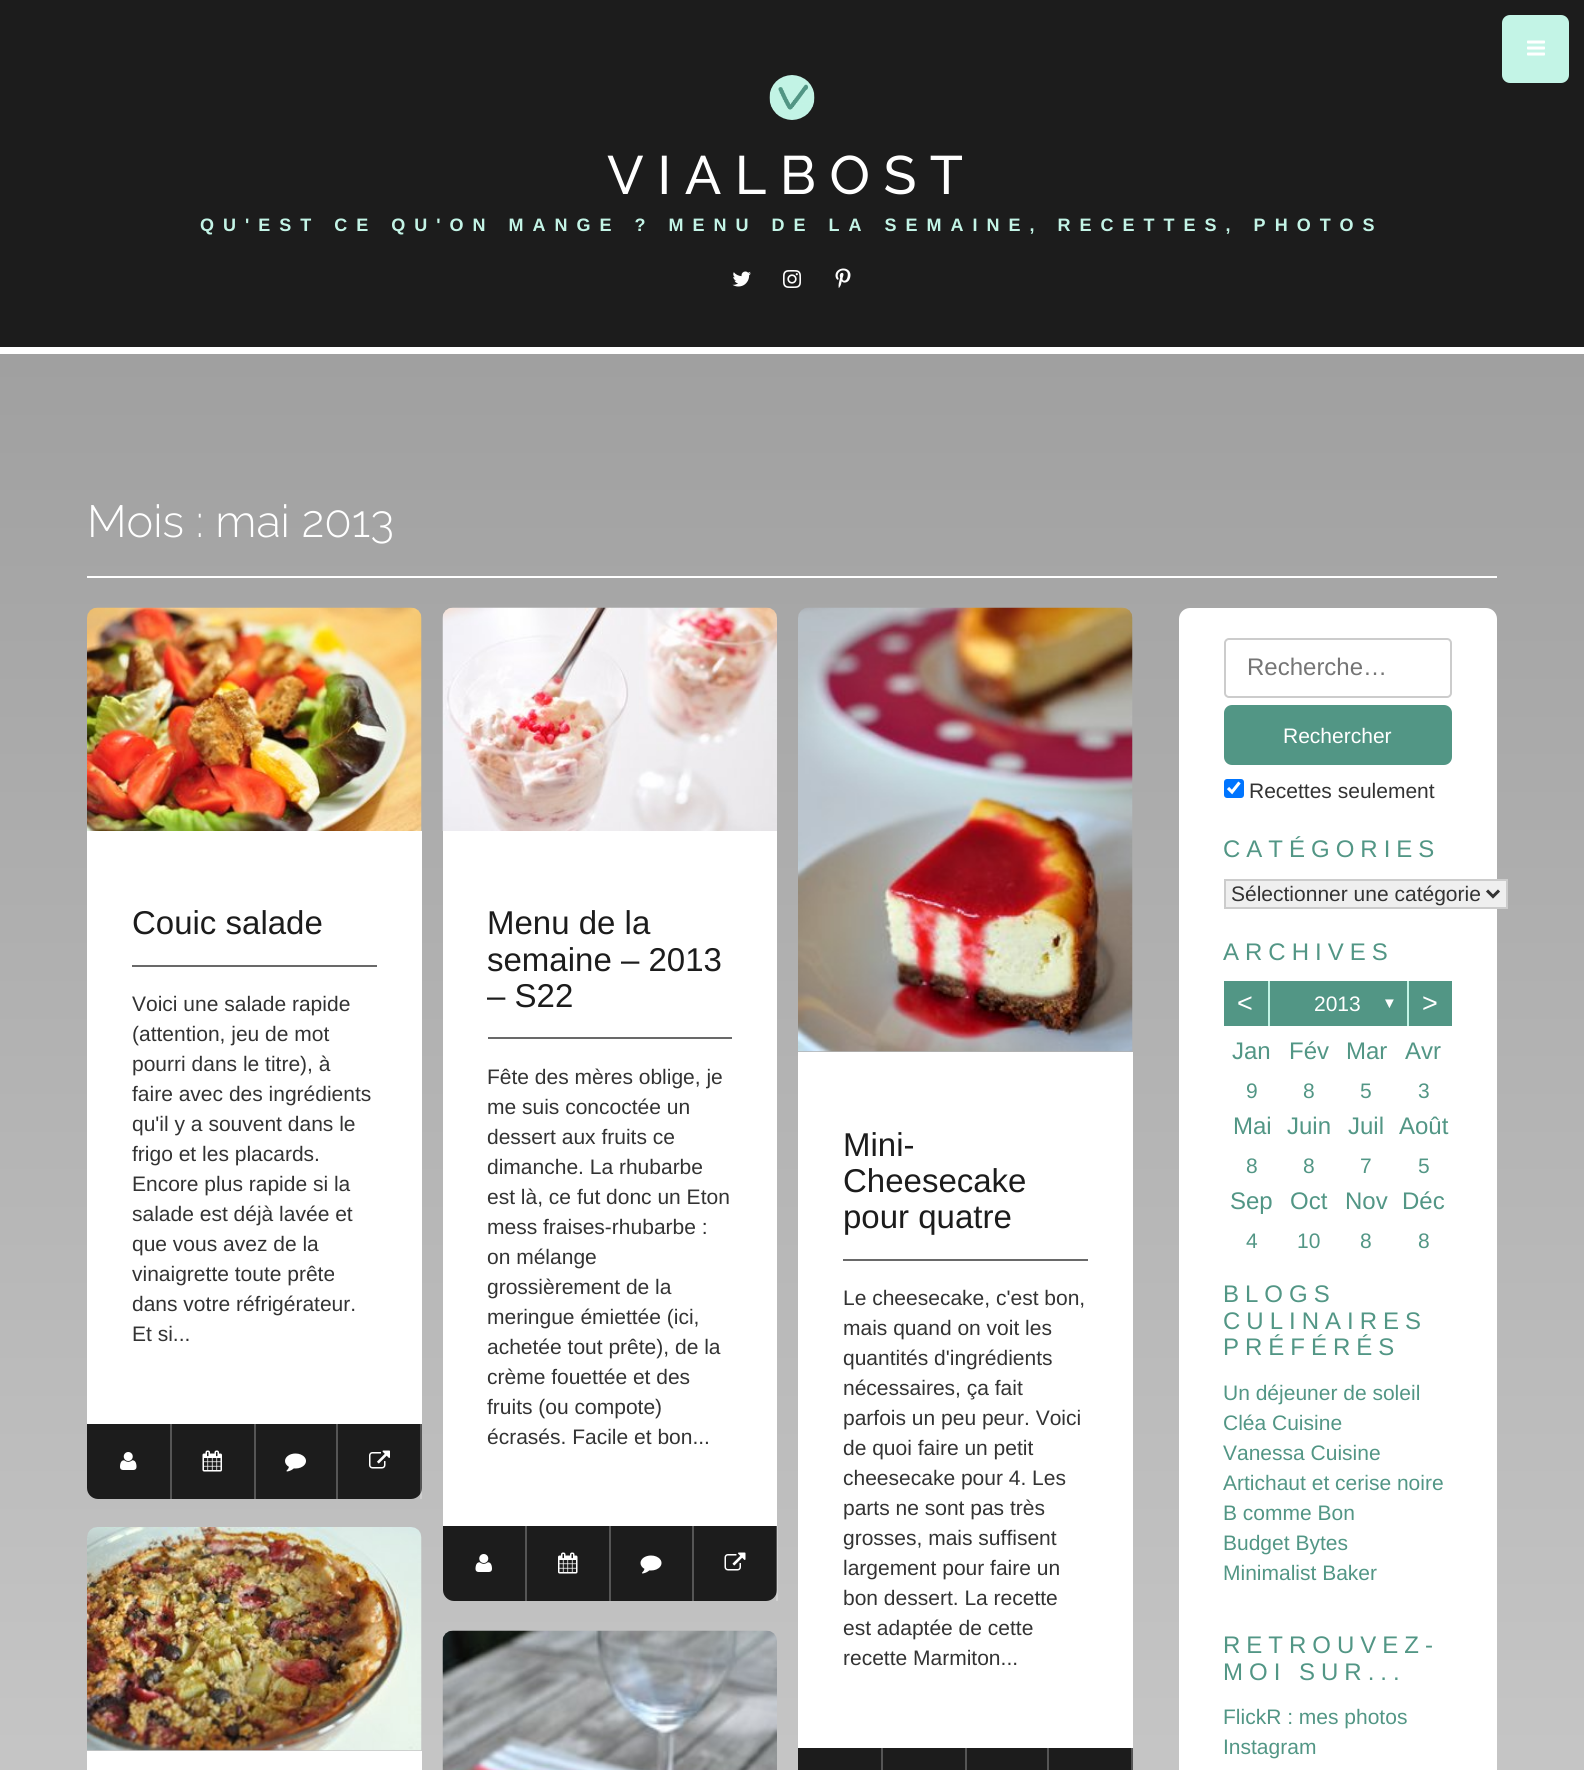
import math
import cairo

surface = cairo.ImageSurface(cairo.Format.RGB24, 1584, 1770)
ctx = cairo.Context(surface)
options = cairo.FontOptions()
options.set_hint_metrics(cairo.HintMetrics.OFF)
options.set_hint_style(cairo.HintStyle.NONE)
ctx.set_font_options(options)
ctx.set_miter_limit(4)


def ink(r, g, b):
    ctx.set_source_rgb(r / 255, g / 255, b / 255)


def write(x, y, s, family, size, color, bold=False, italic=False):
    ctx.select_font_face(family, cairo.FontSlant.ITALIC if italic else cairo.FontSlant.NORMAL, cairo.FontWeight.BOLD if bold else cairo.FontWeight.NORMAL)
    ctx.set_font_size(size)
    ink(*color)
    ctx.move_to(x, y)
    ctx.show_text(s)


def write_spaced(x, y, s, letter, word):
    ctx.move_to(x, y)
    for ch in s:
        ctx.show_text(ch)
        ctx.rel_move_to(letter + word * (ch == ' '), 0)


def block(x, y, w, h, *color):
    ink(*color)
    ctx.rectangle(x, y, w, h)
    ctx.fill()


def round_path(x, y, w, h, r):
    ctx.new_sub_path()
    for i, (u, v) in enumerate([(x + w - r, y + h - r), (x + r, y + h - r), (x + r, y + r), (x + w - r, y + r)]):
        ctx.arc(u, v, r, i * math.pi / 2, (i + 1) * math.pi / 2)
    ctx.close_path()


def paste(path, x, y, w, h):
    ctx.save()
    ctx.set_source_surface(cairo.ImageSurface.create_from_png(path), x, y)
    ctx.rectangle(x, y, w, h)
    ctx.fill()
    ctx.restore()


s1 = dict(family="Raleway Light", size=45, color=(255, 255, 255))
s2 = dict(family="Liberation Sans", size=33, color=(28, 28, 28))
s3 = dict(family="Liberation Sans", size=21, color=(51, 51, 51))
s4 = dict(family="Liberation Sans", size=24, color=(117, 117, 117))
s5 = dict(family="Liberation Sans", size=21, color=(255, 255, 255))
s6 = dict(family="Liberation Sans", size=27, color=(255, 255, 255))
s7 = dict(family="Liberation Sans", size=15, color=(255, 255, 255))
s8 = dict(family="Liberation Sans", size=24, color=(82, 150, 133))
s9 = dict(family="Liberation Sans", size=21, color=(82, 150, 133))

ink(255, 255, 255)
ctx.paint()
block(0, 0, 1584, 347, 28, 28, 28)
ink(195, 244, 230)
round_path(1502, 15, 67, 68, 8)
ctx.fill()
paste("pic1.png", 1527, 40, 18, 16)
paste("pic2.png", 769, 75, 46, 45)
ctx.select_font_face("Raleway Medium")
ctx.set_font_size(54)
ink(255, 255, 255)
write_spaced(607, 194, "VIALBOST", 13.5, 0)
ctx.select_font_face("Liberation Sans", cairo.FontSlant.NORMAL, cairo.FontWeight.BOLD)
ctx.set_font_size(18)
ink(195, 244, 230)
write_spaced(200, 231, "QU'EST CE QU'ON MANGE ? MENU DE LA SEMAINE, RECETTES, PHOTOS", 9, 0)
paste("pic3.png", 732, 271, 19, 16)
paste("pic4.png", 783, 270, 18, 18)
paste("pic5.png", 835, 268, 16, 20)
gradient = cairo.LinearGradient(792, 354, 792, 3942)
gradient.add_color_stop_rgba(0, 0.627, 0.627, 0.627, 1)
gradient.add_color_stop_rgba(1, 1, 1, 1, 1)
ctx.set_source(gradient)
ctx.rectangle(0, 354, 1584, 1416)
ctx.fill()
write(87, 537, "Mois : mai 2013", **s1)
block(87, 576, 1410, 2, 255, 255, 255)
paste("pic6.png", 87, 607, 335, 224)
block(87, 831, 335, 593, 255, 255, 255)
write(132, 934, "Couic salade", **s2)
block(132, 965, 245, 2, 105, 105, 105)
write(132, 1011, "Voici une salade rapide", **s3)
write(132, 1041, "(attention, jeu de mot", **s3)
write(132, 1071, "pourri dans le titre), à", **s3)
write(132, 1101, "faire avec des ingrédients", **s3)
write(132, 1131, "qu'il y a souvent dans le", **s3)
write(132, 1161, "frigo et les placards.", **s3)
write(132, 1191, "Encore plus rapide si la", **s3)
write(132, 1221, "salade est déjà lavée et", **s3)
write(132, 1251, "que vous avez de la", **s3)
write(132, 1281, "vinaigrette toute prête", **s3)
write(132, 1311, "dans votre réfrigérateur.", **s3)
write(132, 1341, "Et si...", **s3)
ink(28, 28, 28)
ctx.new_path()
ctx.move_to(87, 1424)
ctx.line_to(422, 1424)
ctx.line_to(422, 1488)
ctx.curve_to(422, 1494, 417, 1499, 411, 1499)
ctx.line_to(98, 1499)
ctx.curve_to(92, 1499, 87, 1494, 87, 1488)
ctx.close_path()
ctx.fill()
block(170, 1424, 2, 75, 85, 85, 85)
paste("pic7.png", 120, 1452, 17, 18)
block(254, 1424, 2, 75, 85, 85, 85)
paste("pic8.png", 202, 1450, 20, 22)
block(336, 1424, 2, 75, 85, 85, 85)
paste("pic9.png", 285, 1453, 21, 19)
ctx.set_source_rgba(1, 1, 1, 0.25)
ctx.rectangle(420, 1424, 2, 75)
ctx.fill()
paste("pic10.png", 369, 1450, 21, 19)
paste("pic11.png", 442, 607, 335, 224)
block(443, 831, 334, 695, 255, 255, 255)
write(487, 934, "Menu de la", **s2)
write(487, 971, "semaine – 2013", **s2)
write(487, 1007, "– S22", **s2)
block(488, 1037, 244, 2, 105, 105, 105)
write(487, 1084, "Fête des mères oblige, je", **s3)
write(487, 1114, "me suis concoctée un", **s3)
write(487, 1144, "dessert aux fruits ce", **s3)
write(487, 1174, "dimanche. La rhubarbe", **s3)
write(487, 1204, "est là, ce fut donc un Eton", **s3)
write(487, 1234, "mess fraises-rhubarbe :", **s3)
write(487, 1264, "on mélange", **s3)
write(487, 1294, "grossièrement de la", **s3)
write(487, 1324, "meringue émiettée (ici,", **s3)
write(487, 1354, "achetée tout prête), de la", **s3)
write(487, 1384, "crème fouettée et des", **s3)
write(487, 1414, "fruits (ou compote)", **s3)
write(487, 1444, "écrasés. Facile et bon...", **s3)
ink(28, 28, 28)
ctx.new_path()
ctx.move_to(443, 1526)
ctx.line_to(777, 1526)
ctx.line_to(777, 1590)
ctx.curve_to(777, 1596, 772, 1601, 766, 1601)
ctx.line_to(454, 1601)
ctx.curve_to(448, 1601, 443, 1596, 443, 1590)
ctx.close_path()
ctx.fill()
block(525, 1526, 2, 75, 85, 85, 85)
paste("pic12.png", 475, 1554, 17, 18)
block(609, 1526, 2, 75, 85, 85, 85)
paste("pic13.png", 558, 1552, 20, 22)
block(692, 1526, 2, 75, 85, 85, 85)
paste("pic14.png", 640, 1555, 22, 19)
ctx.set_source_rgba(1, 1, 1, 0.25)
ctx.rectangle(776, 1526, 2, 75)
ctx.fill()
paste("pic15.png", 724, 1552, 22, 19)
paste("pic16.png", 798, 607, 335, 445)
block(798, 1052, 335, 696, 255, 255, 255)
write(843, 1156, "Mini-", **s2)
write(843, 1192, "Cheesecake", **s2)
write(843, 1228, "pour quatre", **s2)
block(843, 1259, 245, 2, 105, 105, 105)
write(843, 1305, "Le cheesecake, c'est bon,", **s3)
write(843, 1335, "mais quand on voit les", **s3)
write(843, 1365, "quantités d'ingrédients", **s3)
write(843, 1395, "nécessaires, ça fait", **s3)
write(843, 1425, "parfois un peu peur. Voici", **s3)
write(843, 1455, "de quoi faire un petit", **s3)
write(843, 1485, "cheesecake pour 4. Les", **s3)
write(843, 1515, "parts ne sont pas très", **s3)
write(843, 1545, "grosses, mais suffisent", **s3)
write(843, 1575, "largement pour faire un", **s3)
write(843, 1605, "bon dessert. La recette", **s3)
write(843, 1635, "est adaptée de cette", **s3)
write(843, 1665, "recette Marmiton...", **s3)
block(798, 1748, 333, 22, 28, 28, 28)
block(881, 1748, 2, 22, 85, 85, 85)
block(965, 1748, 2, 22, 85, 85, 85)
block(1047, 1748, 2, 22, 85, 85, 85)
block(1131, 1748, 2, 22, 85, 85, 85)
paste("pic17.png", 87, 1527, 335, 224)
block(87, 1751, 335, 19, 255, 255, 255)
paste("pic18.png", 442, 1630, 335, 140)
round_path(1179, 608, 318, 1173, 11)
ctx.fill()
round_path(1225, 639, 226, 58, 4)
ink(204, 204, 204)
ctx.stroke()
write(1247, 675, "Recherche…", **s4)
ink(82, 150, 133)
round_path(1224, 705, 228, 60, 8)
ctx.fill()
write(1283, 743, "Rechercher", **s5)
ink(0, 117, 255)
round_path(1224, 779, 20, 19, 3)
ctx.fill()
ctx.new_path()
ctx.move_to(1228, 788)
ctx.line_to(1232, 792)
ctx.line_to(1239.5, 782.5)
ink(255, 255, 255)
ctx.set_line_width(3.1)
ctx.stroke()
write(1249, 798, "Recettes seulement", **s3)
ctx.set_font_size(24)
ink(82, 150, 133)
write_spaced(1223, 857, "CATÉGORIES", 6, 0)
ink(239, 239, 239)
ctx.rectangle(1225, 880, 282, 28)
ctx.fill_preserve()
ink(204, 204, 204)
ctx.set_line_width(2)
ctx.stroke()
ctx.new_path()
ctx.move_to(1487, 890.5)
ctx.line_to(1493, 896.5)
ctx.line_to(1499, 890.5)
ink(51, 51, 51)
ctx.set_line_width(3)
ctx.stroke()
write(1231, 901, "Sélectionner une catégorie", **s3)
ctx.set_font_size(24)
ink(82, 150, 133)
write_spaced(1223, 960, "ARCHIVES", 6, 0)
block(1224, 981, 228, 45, 82, 150, 133)
block(1268, 981, 2, 45, 195, 244, 230)
write(1237, 1012, "<", **s6)
write(1314, 1011, "2013", **s5)
write(1382, 1008, "▼", **s7)
block(1407, 981, 2, 45, 195, 244, 230)
write(1422, 1012, ">", **s6)
write(1232, 1059, "Jan", **s8)
write(1246, 1098, "9", **s9)
write(1289, 1059, "Fév", **s8)
write(1303, 1098, "8", **s9)
write(1346, 1059, "Mar", **s8)
write(1360, 1098, "5", **s9)
write(1405, 1059, "Avr", **s8)
write(1418, 1098, "3", **s9)
write(1233, 1134, "Mai", **s8)
write(1246, 1173, "8", **s9)
write(1287, 1134, "Juin", **s8)
write(1303, 1173, "8", **s9)
write(1348, 1134, "Juil", **s8)
write(1360, 1173, "7", **s9)
write(1399, 1134, "Août", **s8)
write(1418, 1173, "5", **s9)
write(1230, 1209, "Sep", **s8)
write(1246, 1248, "4", **s9)
write(1290, 1209, "Oct", **s8)
write(1297, 1248, "10", **s9)
write(1345, 1209, "Nov", **s8)
write(1360, 1248, "8", **s9)
write(1402, 1209, "Déc", **s8)
write(1418, 1248, "8", **s9)
ctx.set_font_size(24)
write_spaced(1223, 1302, "BLOGS", 6, 0)
write_spaced(1223, 1329, "CULINAIRES", 6, 0)
write_spaced(1223, 1355, "PRÉFÉRÉS", 6, 0)
write(1223, 1400, "Un déjeuner de soleil", **s9)
write(1223, 1430, "Cléa Cuisine", **s9)
write(1223, 1460, "Vanessa Cuisine", **s9)
write(1223, 1490, "Artichaut et cerise noire", **s9)
write(1223, 1520, "B comme Bon", **s9)
write(1223, 1550, "Budget Bytes", **s9)
write(1223, 1580, "Minimalist Baker", **s9)
ctx.set_font_size(24)
write_spaced(1223, 1653, "RETROUVEZ-", 6, 0)
write_spaced(1223, 1680, "MOI SUR...", 6, 0)
write(1223, 1724, "FlickR : mes photos", **s9)
write(1223, 1754, "Instagram", **s9)
surface.write_to_png("screenshot.png")
